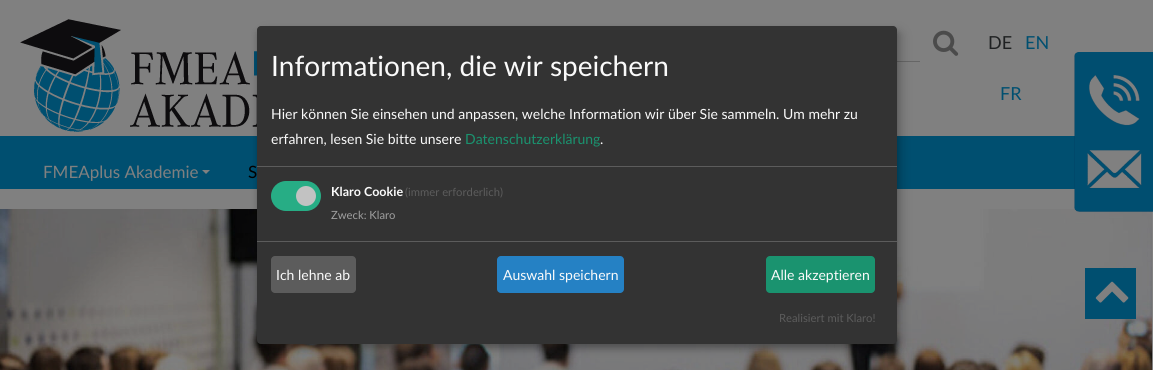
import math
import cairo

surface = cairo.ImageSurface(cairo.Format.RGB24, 1153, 370)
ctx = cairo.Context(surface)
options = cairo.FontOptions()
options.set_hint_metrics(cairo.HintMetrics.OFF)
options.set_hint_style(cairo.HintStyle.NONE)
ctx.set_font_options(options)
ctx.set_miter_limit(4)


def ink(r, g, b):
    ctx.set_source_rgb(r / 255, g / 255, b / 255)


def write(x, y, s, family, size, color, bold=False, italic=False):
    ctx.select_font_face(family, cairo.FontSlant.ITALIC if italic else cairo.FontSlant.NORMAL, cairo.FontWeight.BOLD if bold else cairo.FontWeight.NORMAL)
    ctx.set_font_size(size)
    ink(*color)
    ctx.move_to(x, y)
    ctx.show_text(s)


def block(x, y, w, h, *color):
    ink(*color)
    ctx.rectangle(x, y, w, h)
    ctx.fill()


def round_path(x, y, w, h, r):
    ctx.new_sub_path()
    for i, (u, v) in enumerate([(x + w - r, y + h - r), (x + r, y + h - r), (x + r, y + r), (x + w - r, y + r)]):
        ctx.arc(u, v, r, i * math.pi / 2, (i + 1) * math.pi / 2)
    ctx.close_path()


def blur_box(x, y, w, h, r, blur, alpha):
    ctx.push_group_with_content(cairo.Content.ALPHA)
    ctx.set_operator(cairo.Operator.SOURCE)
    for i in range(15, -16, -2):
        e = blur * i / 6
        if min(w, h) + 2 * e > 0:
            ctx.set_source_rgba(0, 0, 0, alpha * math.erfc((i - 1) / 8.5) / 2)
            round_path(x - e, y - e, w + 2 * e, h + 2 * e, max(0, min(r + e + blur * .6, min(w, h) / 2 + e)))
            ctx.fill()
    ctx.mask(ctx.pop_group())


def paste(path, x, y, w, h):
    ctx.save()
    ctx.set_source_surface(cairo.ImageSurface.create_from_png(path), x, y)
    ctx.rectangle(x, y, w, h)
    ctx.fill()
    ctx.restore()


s1 = dict(family="Lato", size=18, color=(31, 33, 34))
s2 = dict(family="Lato", size=18, color=(0, 79, 112))
s3 = dict(family="Lato", size=17, color=(128, 128, 128))
s4 = dict(family="Lato", size=17, color=(0, 0, 0))
s5 = dict(family="Lato", size=28, color=(250, 250, 250))
s6 = dict(family="Lato", size=14, color=(250, 250, 250))
s7 = dict(family="Lato", size=14, color=(26, 147, 111))
s8 = dict(family="Lato", size=12.5, color=(250, 250, 250), bold=True)
s9 = dict(family="Lato", size=11.25, color=(92, 92, 92))
s10 = dict(family="Lato", size=11.25, color=(160, 160, 160))

ink(128, 128, 128)
ctx.paint()
block(0, 136, 1075, 53, 0, 79, 112)
paste("pic1.png", 20, 19, 237, 113)
paste("pic2.png", 933, 30, 26, 26)
block(897, 61, 23, 1, 102, 102, 102)
write(988, 49, "DE", **s1)
write(1025, 49, "EN", **s2)
write(1000, 100, "FR", **s2)
write(43, 178, "FMEAplus Akademie", **s3)
ctx.new_path()
ctx.move_to(202, 170)
ctx.line_to(210, 170)
ctx.line_to(206, 174)
ctx.close_path()
ctx.fill()
write(248, 178, "S", **s4)
paste("pic4.png", 0, 209, 1152, 161)
paste("pic3.png", 1074, 52, 79, 160)
ink(0, 0, 0)
blur_box(262, 31, 640, 318, 4, 5, 0.19)
blur_box(257, 30, 640, 318, 4, 3, 0.2)
ink(51, 51, 51)
round_path(257, 26, 640, 318, 4)
ctx.fill()
block(257, 166, 640, 1, 92, 92, 92)
write(271, 76, "Informationen, die wir speichern", **s5)
write(271, 119, "Hier können Sie einsehen und anpassen, welche Information wir über Sie sammeln. Um mehr zu", **s6)
write(271, 144, "erfahren, lesen Sie bitte unsere", **s6)
write(465, 144, "Datenschutzerklärung", **s7)
write(600, 144, ".", **s6)
ink(39, 173, 133)
round_path(271, 181, 50, 30, 15)
ctx.fill()
ink(194, 194, 194)
ctx.arc(306, 196, 10, 0, 2 * math.pi)
ctx.fill()
write(331, 196, "Klaro Cookie", **s8)
write(405, 196, "(immer erforderlich)", **s9)
write(331, 219, "Zweck: Klaro", **s10)
block(257, 241, 640, 1, 92, 92, 92)
round_path(271, 256, 85, 37, 4)
ctx.fill()
write(276, 280, "Ich lehne ab", **s6)
ink(37, 129, 196)
round_path(497, 256, 127, 37, 4)
ctx.fill()
write(503, 280, "Auswahl speichern", **s6)
ink(26, 147, 111)
round_path(766, 256, 109, 37, 4)
ctx.fill()
write(771, 280, "Alle akzeptieren", **s6)
write(779, 322, "Realisiert mit Klaro!", **s9)
block(1085, 268, 51, 51, 0, 79, 112)
paste("pic5.png", 1095, 281, 34, 22)
surface.write_to_png("screenshot.png")
